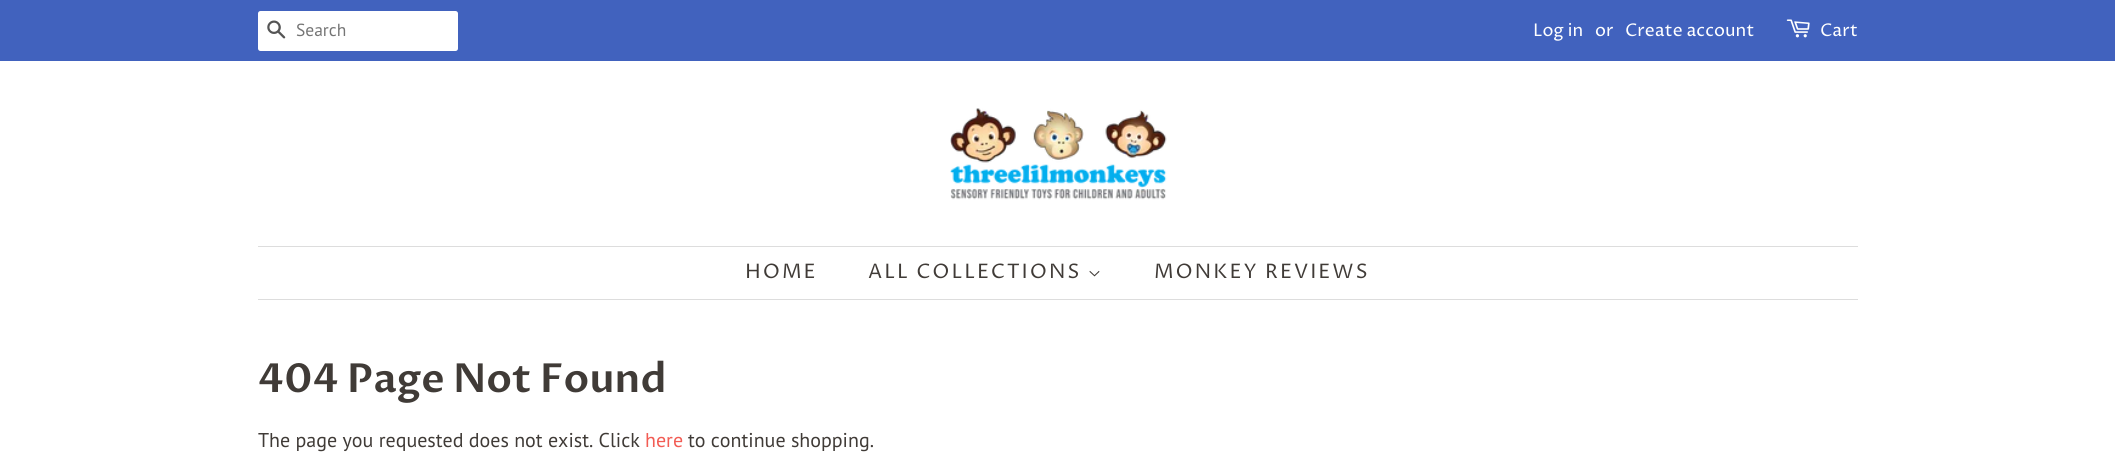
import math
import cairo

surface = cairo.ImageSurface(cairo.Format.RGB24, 2115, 473)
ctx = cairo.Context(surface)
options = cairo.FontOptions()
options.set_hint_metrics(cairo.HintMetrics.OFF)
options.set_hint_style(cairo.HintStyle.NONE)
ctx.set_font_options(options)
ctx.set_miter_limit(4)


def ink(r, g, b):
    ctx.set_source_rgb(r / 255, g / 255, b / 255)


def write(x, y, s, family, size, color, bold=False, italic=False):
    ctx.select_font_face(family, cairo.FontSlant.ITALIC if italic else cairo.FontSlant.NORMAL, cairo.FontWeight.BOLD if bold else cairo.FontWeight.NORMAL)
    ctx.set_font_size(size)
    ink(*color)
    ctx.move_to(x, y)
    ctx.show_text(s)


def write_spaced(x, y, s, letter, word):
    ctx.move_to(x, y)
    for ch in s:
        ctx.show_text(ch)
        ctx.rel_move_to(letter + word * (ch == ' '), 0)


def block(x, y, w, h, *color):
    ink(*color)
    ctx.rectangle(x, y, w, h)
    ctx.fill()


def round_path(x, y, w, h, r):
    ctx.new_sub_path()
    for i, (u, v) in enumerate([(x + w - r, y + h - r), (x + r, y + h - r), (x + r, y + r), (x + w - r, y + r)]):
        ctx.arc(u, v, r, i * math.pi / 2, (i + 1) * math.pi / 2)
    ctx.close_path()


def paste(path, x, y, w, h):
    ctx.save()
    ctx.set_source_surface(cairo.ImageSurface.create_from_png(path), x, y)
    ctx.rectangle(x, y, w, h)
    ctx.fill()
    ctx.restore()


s1 = dict(family="PT Sans", size=17.5, color=(117, 117, 117))
s2 = dict(family="Proza Libre", size=17.5, color=(255, 255, 255))
s3 = dict(family="Proza Libre SemiBold", size=40, color=(64, 59, 55))
s4 = dict(family="PT Sans", size=20, color=(64, 59, 55))
s5 = dict(family="PT Sans", size=20, color=(242, 92, 84))

ink(255, 255, 255)
ctx.paint()
block(0, 0, 2115, 61, 65, 98, 190)
ink(255, 255, 255)
round_path(258, 11, 200, 40, 2.5)
ctx.fill()
paste("pic1.png", 267, 20, 19, 19)
write(296, 36, "Search", **s1)
write(1533, 36, "Log in", **s2)
write(1595, 36, "or", **s2)
write(1625, 36, "Create account", **s2)
paste("pic2.png", 1786, 19, 24, 19)
write(1820, 36, "Cart", **s2)
paste("pic3.png", 950, 108, 217, 92)
block(258, 246, 1600, 1, 221, 221, 221)
block(258, 299, 1600, 1, 221, 221, 221)
ctx.set_font_size(20)
ink(64, 59, 55)
write_spaced(745, 278, "HOME", 2, 0)
write_spaced(868, 278, "ALL COLLECTIONS", 2, 0)
paste("pic4.png", 1089, 270, 11, 7)
write_spaced(1154, 278, "MONKEY REVIEWS", 2, 0)
write(258, 392, "404 Page Not Found", **s3)
write(258, 447, "The page you requested does not exist. Click", **s4)
write(645, 447, "here", **s5)
write(688, 447, "to continue shopping.", **s4)
surface.write_to_png("screenshot.png")
